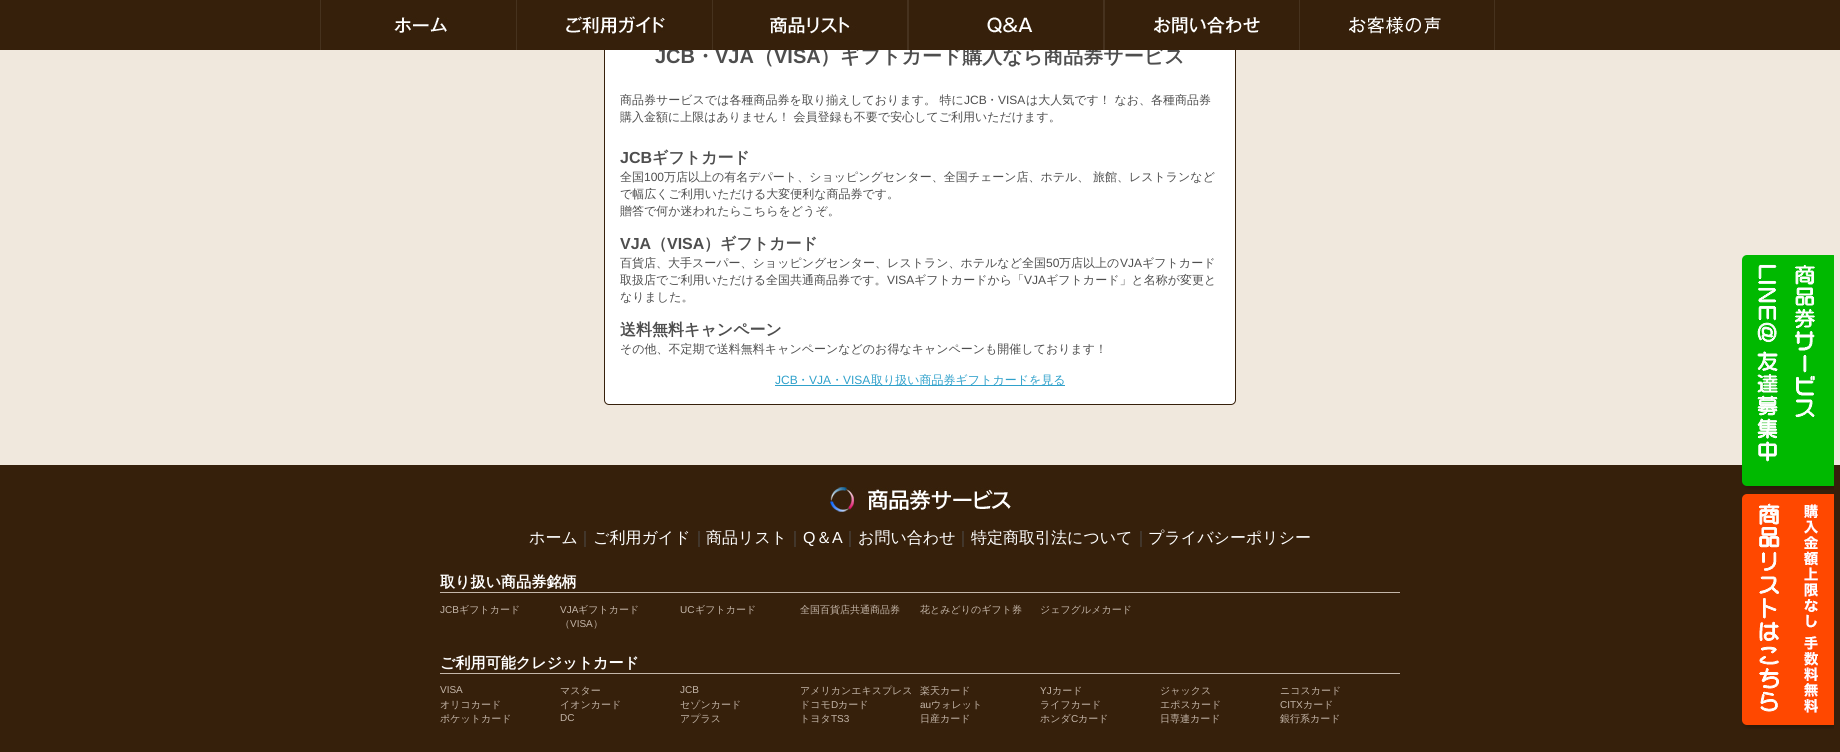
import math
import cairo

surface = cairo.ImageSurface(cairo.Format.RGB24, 1840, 752)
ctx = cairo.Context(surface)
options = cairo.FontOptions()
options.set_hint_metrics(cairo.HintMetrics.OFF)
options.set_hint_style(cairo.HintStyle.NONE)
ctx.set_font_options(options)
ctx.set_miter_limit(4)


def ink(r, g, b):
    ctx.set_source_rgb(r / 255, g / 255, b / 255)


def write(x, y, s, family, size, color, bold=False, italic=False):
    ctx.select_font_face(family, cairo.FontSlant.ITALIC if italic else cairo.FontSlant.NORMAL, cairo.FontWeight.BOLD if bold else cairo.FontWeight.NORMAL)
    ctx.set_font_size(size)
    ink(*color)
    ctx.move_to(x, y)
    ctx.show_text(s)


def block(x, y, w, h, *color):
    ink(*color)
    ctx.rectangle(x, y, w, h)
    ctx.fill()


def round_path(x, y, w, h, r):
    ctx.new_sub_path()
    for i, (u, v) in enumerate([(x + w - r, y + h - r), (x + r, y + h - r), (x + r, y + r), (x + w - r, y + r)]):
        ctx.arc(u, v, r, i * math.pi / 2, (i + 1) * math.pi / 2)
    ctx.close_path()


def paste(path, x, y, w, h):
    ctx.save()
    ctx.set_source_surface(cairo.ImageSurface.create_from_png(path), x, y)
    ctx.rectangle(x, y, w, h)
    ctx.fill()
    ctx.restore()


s1 = dict(family="Liberation Sans", size=20, color=(78, 78, 78), bold=True)
s2 = dict(family="WenQuanYi Zen Hei", size=20, color=(78, 78, 78), bold=True)
s3 = dict(family="WenQuanYi Zen Hei Medium", size=12, color=(78, 78, 78))
s4 = dict(family="Liberation Sans", size=12, color=(78, 78, 78))
s5 = dict(family="Liberation Sans", size=16, color=(78, 78, 78), bold=True)
s6 = dict(family="WenQuanYi Zen Hei", size=16, color=(78, 78, 78), bold=True)
s7 = dict(family="Liberation Sans", size=12, color=(48, 161, 203))
s8 = dict(family="WenQuanYi Zen Hei Medium", size=12, color=(48, 161, 203))
s9 = dict(family="WenQuanYi Zen Hei Medium", size=16, color=(255, 255, 255))
s10 = dict(family="WenQuanYi Zen Hei Medium", size=16, color=(78, 78, 78))
s11 = dict(family="Liberation Sans", size=16, color=(255, 255, 255))
s12 = dict(family="WenQuanYi Zen Hei", size=15.1, color=(255, 255, 255), bold=True)
s13 = dict(family="Liberation Sans", size=10, color=(196, 182, 169))
s14 = dict(family="WenQuanYi Zen Hei Medium", size=10, color=(196, 182, 169))

ink(240, 232, 221)
ctx.paint()
ink(255, 255, 255)
round_path(604.5, 27.5, 631, 377, 4.5)
ctx.fill_preserve()
ink(54, 32, 11)
ctx.set_line_width(1)
ctx.stroke()
write(655, 63, "JCB", **s1)
write(715, 63, "VJA", **s1)
write(754, 63, "（", **s2)
write(774, 63, "VISA", **s1)
write(820, 63, "）ギフトカード購入なら商品券サービス", **s2)
block(0, 0, 1840, 50, 54, 32, 11)
block(320, 0, 1, 50, 70, 50, 30)
paste("pic1.png", 394, 17, 54, 16)
block(516, 0, 1, 50, 70, 50, 30)
paste("pic2.png", 566, 16, 99, 18)
block(712, 0, 1, 50, 70, 50, 30)
paste("pic3.png", 770, 0, 138, 50)
block(908, 0, 1, 50, 70, 50, 30)
paste("pic4.png", 987, 0, 117, 50)
block(1104, 0, 1, 50, 70, 50, 30)
paste("pic5.png", 1154, 16, 106, 18)
block(1494, 0, 1, 50, 70, 50, 30)
block(1299, 0, 1, 50, 70, 50, 30)
paste("pic6.png", 1349, 16, 92, 18)
write(695, 63, "・", **s2)
write(620, 104, "商品券サービスでは各種商品券を取り揃えしております。 特に", **s3)
write(964, 104, "JCB", **s4)
write(986, 104, "・", **s3)
write(998, 104, "VISA", **s4)
write(1026, 104, "は大人気です！ なお、各種商品券", **s3)
write(620, 121, "購入金額に上限はありません！ 会員登録も不要で安心してご利用いただけます。", **s3)
write(620, 163, "JCB", **s5)
write(652, 163, "ギフトカード", **s6)
write(620, 181, "全国", **s3)
write(644, 181, "100", **s4)
write(664, 181, "万店以上の有名デパート、ショッピングセンター、全国チェーン店、ホテル、 旅館、レストランなど", **s3)
write(620, 198, "で幅広くご利用いただける大変便利な商品券です。", **s3)
write(620, 215, "贈答で何か迷われたらこちらをどうぞ。", **s3)
write(620, 249, "VJA", **s5)
write(651, 249, "（", **s6)
write(667, 249, "VISA", **s5)
write(704, 249, "）ギフトカード", **s6)
write(620, 267, "百貨店、大手スーパー、ショッピングセンター、レストラン、ホテルなど全国", **s3)
write(1046, 267, "50", **s4)
write(1059, 267, "万店以上の", **s3)
write(1120, 267, "VJA", **s4)
write(1142, 267, "ギフトカード", **s3)
write(620, 284, "取扱店でご利用いただける全国共通商品券です。", **s3)
write(887, 284, "VISA", **s4)
write(914, 284, "ギフトカードから「", **s3)
write(1024, 284, "VJA", **s4)
write(1046, 284, "ギフトカード」と名称が変更と", **s3)
write(620, 301, "なりました。", **s3)
write(620, 335, "送料無料キャンペーン", **s6)
write(620, 353, "その他、不定期で送料無料キャンペーンなどのお得なキャンペーンも開催しております！", **s3)
write(775, 384, "JCB", **s7)
block(775, 385, 290, 1, 48, 161, 203)
write(797, 384, "・", **s8)
write(809, 384, "VJA", **s7)
write(831, 384, "・", **s8)
write(843, 384, "VISA", **s7)
write(871, 384, "取り扱い商品券ギフトカードを見る", **s8)
block(0, 465, 1840, 287, 54, 32, 11)
paste("pic7.png", 830, 487, 181, 25)
write(529, 543, "ホーム", **s9)
write(577, 543, "｜", **s10)
write(593, 543, "ご利用ガイド", **s9)
write(691, 543, "｜", **s10)
write(706, 543, "商品リスト", **s9)
write(787, 543, "｜", **s10)
write(803, 543, "Q", **s11)
write(816, 543, "＆", **s9)
write(832, 543, "A", **s11)
write(842, 543, "｜", **s10)
write(858, 543, "お問い合わせ", **s9)
write(955, 543, "｜", **s10)
write(971, 543, "特定商取引法について", **s9)
write(1133, 543, "｜", **s10)
write(1148, 543, "プライバシーポリシー", **s9)
write(440, 587, "取り扱い商品券銘柄", **s12)
block(440, 592, 960, 1, 196, 182, 169)
write(440, 613, "JCB", **s13)
write(459, 613, "ギフトカード", **s14)
write(560, 613, "VJA", **s13)
write(578, 613, "ギフトカード", **s14)
write(560, 627, "（", **s14)
write(570, 627, "VISA", **s13)
write(593, 627, "）", **s14)
write(680, 613, "UC", **s13)
write(695, 613, "ギフトカード", **s14)
write(800, 613, "全国百貨店共通商品券", **s14)
write(920, 613, "花とみどりのギフト券", **s14)
write(1040, 613, "ジェフグルメカード", **s14)
write(440, 668, "ご利用可能クレジットカード", **s12)
block(440, 673, 960, 1, 196, 182, 169)
write(440, 693, "VISA", **s13)
write(560, 694, "マスター", **s14)
write(680, 693, "JCB", **s13)
write(800, 694, "アメリカンエキスプレス", **s14)
write(920, 694, "楽天カード", **s14)
write(1040, 694, "YJ", **s13)
write(1052, 694, "カード", **s14)
write(1160, 694, "ジャックス", **s14)
write(1280, 694, "ニコスカード", **s14)
write(440, 708, "オリコカード", **s14)
write(560, 708, "イオンカード", **s14)
write(680, 708, "セゾンカード", **s14)
write(800, 708, "ドコモ", **s14)
write(831, 708, "D", **s13)
write(838, 708, "カード", **s14)
write(920, 708, "au", **s13)
write(931, 708, "ウォレット", **s14)
write(1040, 708, "ライフカード", **s14)
write(1160, 708, "エポスカード", **s14)
write(1280, 708, "CITX", **s13)
write(1303, 708, "カード", **s14)
write(440, 722, "ポケットカード", **s14)
write(560, 721, "DC", **s13)
write(680, 722, "アプラス", **s14)
write(800, 722, "トヨタ", **s14)
write(831, 722, "TS3", **s13)
write(920, 722, "日産カード", **s14)
write(1040, 722, "ホンダ", **s14)
write(1071, 722, "C", **s13)
write(1078, 722, "カード", **s14)
write(1160, 722, "日専連カード", **s14)
write(1280, 722, "銀行系カード", **s14)
paste("pic8.png", 1741, 255, 93, 235)
paste("pic9.png", 1742, 494, 92, 235)
surface.write_to_png("screenshot.png")
